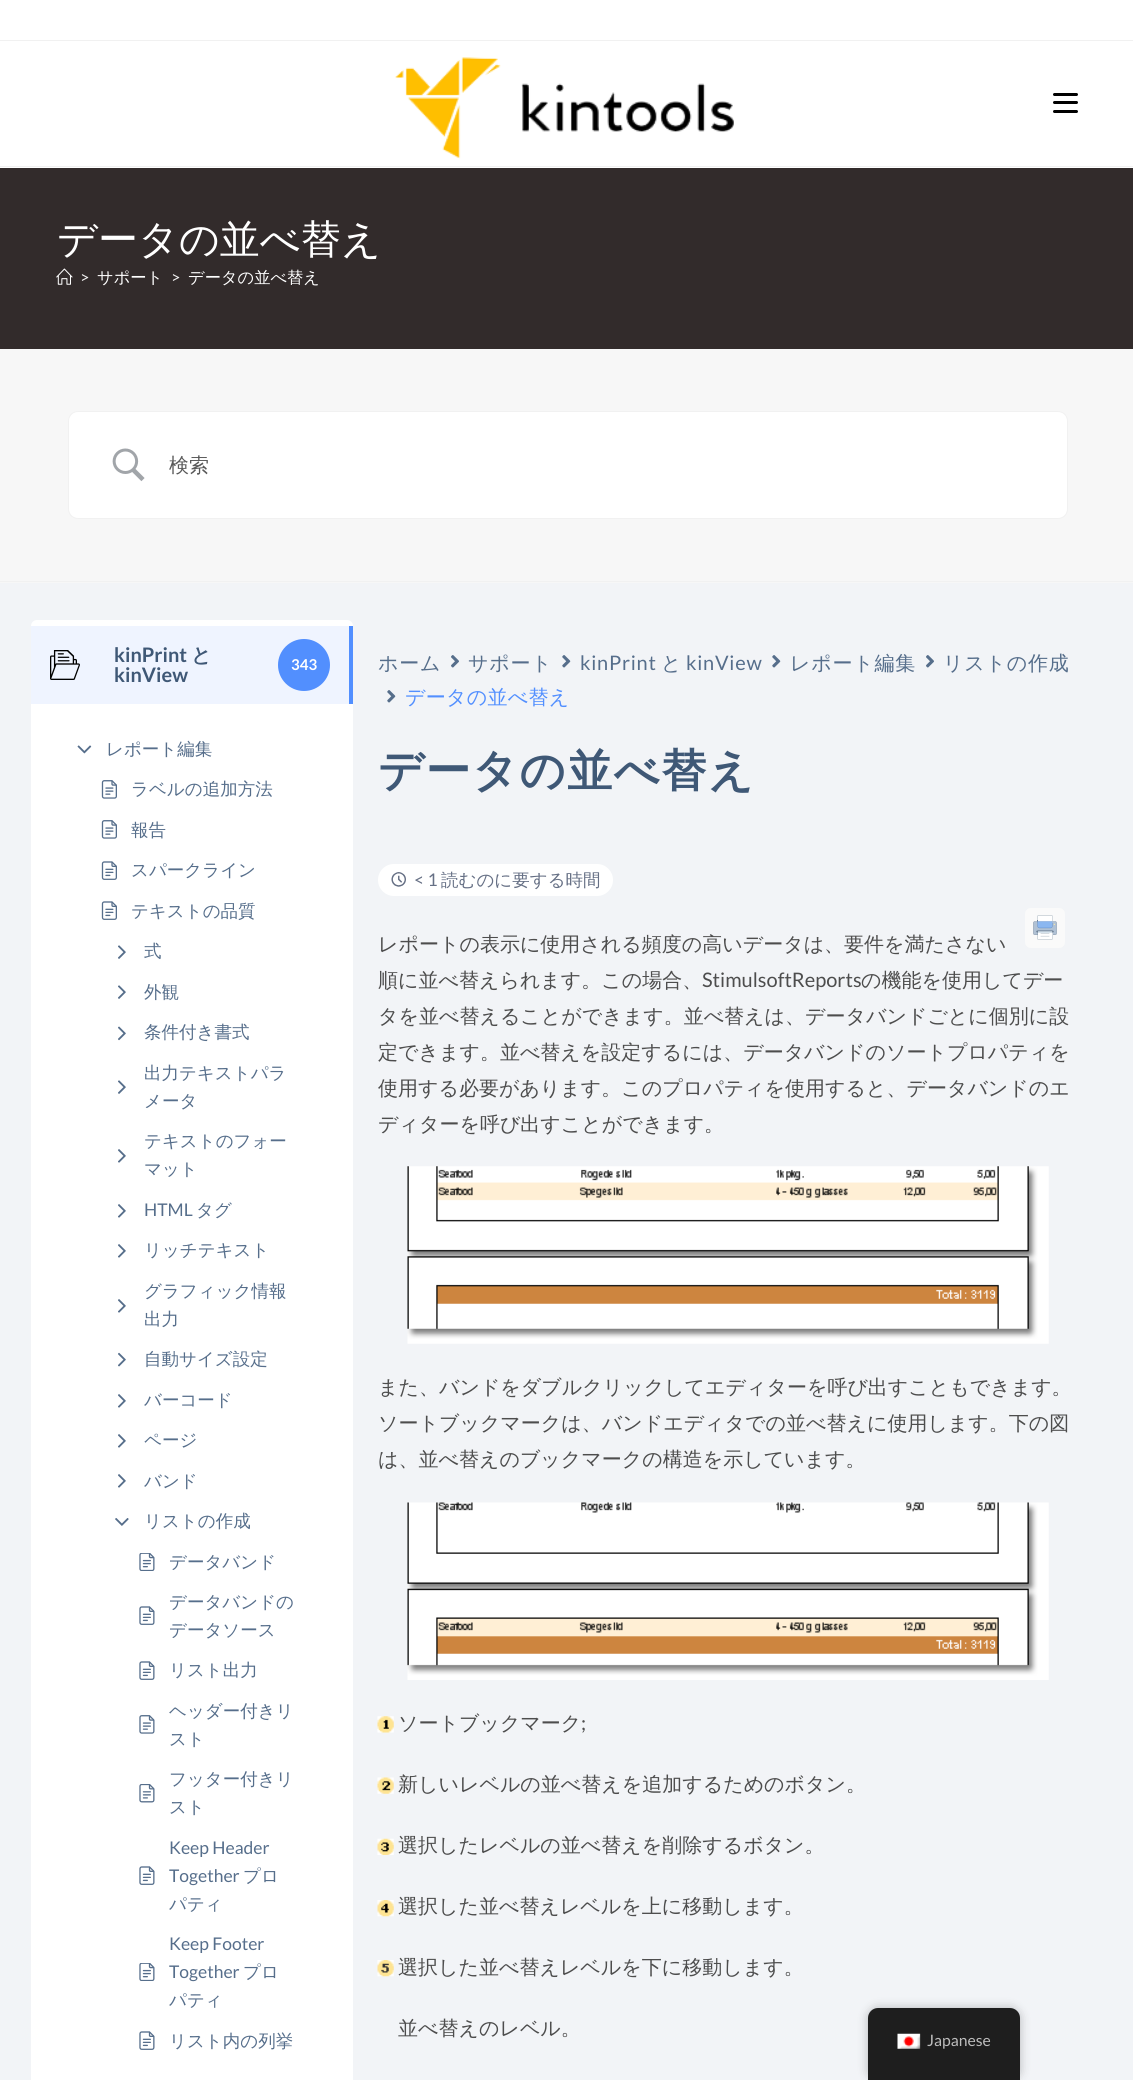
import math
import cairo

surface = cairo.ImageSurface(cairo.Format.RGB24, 1133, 2080)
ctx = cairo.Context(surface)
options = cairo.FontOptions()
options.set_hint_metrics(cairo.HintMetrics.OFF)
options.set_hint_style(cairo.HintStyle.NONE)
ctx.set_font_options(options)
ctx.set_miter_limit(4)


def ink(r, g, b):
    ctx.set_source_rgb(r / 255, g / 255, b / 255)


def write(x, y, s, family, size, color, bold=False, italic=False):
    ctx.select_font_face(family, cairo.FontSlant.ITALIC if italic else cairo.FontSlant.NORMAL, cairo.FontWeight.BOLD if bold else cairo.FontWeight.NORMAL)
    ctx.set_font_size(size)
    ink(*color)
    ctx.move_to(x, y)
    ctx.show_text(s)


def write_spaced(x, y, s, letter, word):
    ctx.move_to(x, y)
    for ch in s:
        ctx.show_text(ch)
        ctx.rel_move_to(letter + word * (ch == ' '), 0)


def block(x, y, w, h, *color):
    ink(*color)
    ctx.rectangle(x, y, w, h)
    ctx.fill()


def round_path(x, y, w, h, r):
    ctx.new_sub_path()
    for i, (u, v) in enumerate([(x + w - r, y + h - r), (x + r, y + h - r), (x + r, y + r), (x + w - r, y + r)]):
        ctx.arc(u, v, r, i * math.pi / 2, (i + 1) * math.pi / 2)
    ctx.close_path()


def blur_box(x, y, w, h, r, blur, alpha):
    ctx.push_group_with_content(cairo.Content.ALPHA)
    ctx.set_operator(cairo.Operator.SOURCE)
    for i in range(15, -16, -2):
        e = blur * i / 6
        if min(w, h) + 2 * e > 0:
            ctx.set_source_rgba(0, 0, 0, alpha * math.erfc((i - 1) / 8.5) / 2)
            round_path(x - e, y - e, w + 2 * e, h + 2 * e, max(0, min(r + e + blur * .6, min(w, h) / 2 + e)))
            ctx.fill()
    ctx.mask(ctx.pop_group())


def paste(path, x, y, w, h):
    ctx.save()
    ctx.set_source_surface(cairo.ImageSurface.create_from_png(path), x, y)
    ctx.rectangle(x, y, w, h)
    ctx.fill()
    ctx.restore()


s1 = dict(family="WenQuanYi Zen Hei Medium", size=40, color=(255, 255, 255))
s2 = dict(family="Lato", size=16.25, color=(239, 239, 239))
s3 = dict(family="WenQuanYi Zen Hei Medium", size=16.25, color=(255, 255, 255))
s4 = dict(family="WenQuanYi Zen Hei Medium", size=20, color=(89, 89, 89))
s5 = dict(family="Lato", size=20, color=(63, 88, 118), bold=True)
s6 = dict(family="WenQuanYi Zen Hei", size=20, color=(63, 88, 118), bold=True)
s7 = dict(family="Lato", size=15, color=(255, 255, 255), bold=True)
s8 = dict(family="WenQuanYi Zen Hei Medium", size=17.5, color=(86, 110, 139))
s9 = dict(family="Lato", size=17.5, color=(86, 110, 139))
s10 = dict(family="Lato", size=17.5, color=(102, 112, 133))
s11 = dict(family="WenQuanYi Zen Hei Medium", size=17.5, color=(102, 112, 133))
s12 = dict(family="WenQuanYi Zen Hei Medium", size=20, color=(77, 77, 77))
s13 = dict(family="Lato", size=20, color=(77, 77, 77))
s14 = dict(family="Lato", size=15.75, color=(189, 189, 189))

ink(255, 255, 255)
ctx.paint()
block(0, 40, 1133, 1, 241, 241, 241)
block(0, 166, 1133, 1, 241, 241, 241)
paste("pic1.png", 395, 57, 339, 102)
ink(0, 0, 0)
round_path(1053, 110, 25, 3, 1.5)
ctx.fill()
round_path(1053, 93, 25, 3, 1.5)
ctx.fill()
round_path(1053, 101, 25, 3, 1.5)
ctx.fill()
block(0, 168, 1133, 181, 50, 43, 43)
write(57, 253, "データの並べ替え", **s1)
paste("pic2.png", 56, 268, 17, 17)
write(80, 283, ">", **s2)
write(97, 283, "サポート", **s3)
write(171, 283, ">", **s2)
write(188, 283, "データの並べ替え", **s3)
block(0, 583, 1133, 1497, 242, 244, 247)
block(0, 349, 1133, 234, 247, 247, 247)
block(0, 581, 1133, 1, 241, 241, 241)
ink(255, 255, 255)
round_path(68.5, 411.5, 999, 107, 9.5)
ctx.fill_preserve()
ink(241, 241, 241)
ctx.set_line_width(1)
ctx.stroke()
paste("pic3.png", 112, 448, 33, 34)
write(169, 472, "検索", **s4)
ink(255, 255, 255)
round_path(31, 620, 322, 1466, 6)
ctx.fill()
block(31, 626, 318, 78, 239, 244, 255)
block(349, 626, 4, 78, 82, 143, 255)
paste("pic4.png", 50, 650, 30, 30)
write(114, 662, "kinPrint", **s5)
write(191, 662, "と", **s6)
write(114, 682, "kinView", **s5)
ink(82, 143, 254)
ctx.new_path()
ctx.arc(304, 665, 26, 0, 2 * math.pi)
ctx.fill()
write(291, 670, "343", **s7)
paste("pic5.png", 77, 745, 15, 9)
write(106, 755, "レポート編集", **s8)
paste("pic6.png", 101, 780, 16, 19)
write(131, 795, "ラベルの追加方法", **s8)
paste("pic6.png", 101, 820, 16, 19)
write(131, 836, "報告", **s8)
paste("pic7.png", 101, 861, 16, 19)
write(131, 876, "スパークライン", **s8)
paste("pic7.png", 101, 901, 16, 19)
write(131, 917, "テキストの品質", **s8)
paste("pic8.png", 118, 945, 8, 14)
write(144, 957, "式", **s8)
paste("pic8.png", 118, 985, 8, 14)
write(144, 998, "外観", **s8)
paste("pic9.png", 118, 1026, 8, 15)
write(144, 1038, "条件付き書式", **s8)
paste("pic8.png", 118, 1080, 8, 14)
write(144, 1079, "出力テキストパラ", **s8)
write(144, 1107, "メータ", **s8)
paste("pic10.png", 118, 1149, 8, 14)
write(144, 1147, "テキストのフォー", **s8)
write(144, 1175, "マット", **s8)
paste("pic10.png", 118, 1204, 8, 14)
write(144, 1216, "HTML", **s9)
write(196, 1216, "タグ", **s8)
paste("pic10.png", 118, 1244, 8, 14)
write(144, 1256, "リッチテキスト", **s8)
paste("pic10.png", 118, 1299, 8, 14)
write(144, 1297, "グラフィック情報", **s8)
write(144, 1325, "出力", **s8)
paste("pic11.png", 118, 1352, 8, 15)
write(144, 1365, "自動サイズ設定", **s8)
paste("pic10.png", 118, 1394, 8, 14)
write(144, 1406, "バーコード", **s8)
paste("pic10.png", 118, 1434, 8, 14)
write(144, 1446, "ページ", **s8)
paste("pic10.png", 118, 1474, 8, 14)
write(144, 1487, "バンド", **s8)
paste("pic12.png", 115, 1518, 14, 8)
write(144, 1527, "リストの作成", **s8)
paste("pic13.png", 139, 1553, 16, 18)
write(169, 1568, "データバンド", **s8)
paste("pic14.png", 139, 1606, 16, 19)
write(169, 1608, "データバンドの", **s8)
write(169, 1636, "データソース", **s8)
paste("pic14.png", 139, 1661, 16, 19)
write(169, 1676, "リスト出力", **s8)
paste("pic15.png", 139, 1715, 16, 19)
write(169, 1717, "ヘッダー付きリ", **s8)
write(169, 1745, "スト", **s8)
paste("pic16.png", 139, 1784, 16, 19)
write(169, 1785, "フッター付きリ", **s8)
write(169, 1813, "スト", **s8)
paste("pic14.png", 139, 1866, 16, 19)
write(169, 1854, "Keep Header", **s9)
write(169, 1882, "Together", **s9)
write(243, 1882, "プロ", **s8)
write(169, 1910, "パティ", **s8)
paste("pic13.png", 139, 1963, 16, 18)
write(169, 1950, "Keep Footer", **s9)
write(169, 1978, "Together", **s9)
write(243, 1978, "プロ", **s8)
write(169, 2006, "パティ", **s8)
paste("pic14.png", 139, 2031, 16, 19)
write(169, 2047, "リスト内の列挙", **s8)
ctx.set_font_size(20)
write_spaced(378, 670, "ホーム", 0.75, 0)
paste("pic17.png", 451, 655, 8, 13)
write_spaced(468, 670, "サポート", 0.75, 0)
paste("pic18.png", 562, 655, 9, 13)
ctx.select_font_face("Lato")
write_spaced(580, 670, "kinPrint", 0.75, 0)
ctx.select_font_face("WenQuanYi Zen Hei Medium")
write_spaced(661, 670, "と", 0.75, 0)
ctx.select_font_face("Lato")
write_spaced(686, 670, "kinView", 0.75, 0)
paste("pic18.png", 772, 655, 9, 13)
ctx.select_font_face("WenQuanYi Zen Hei Medium")
write_spaced(790, 670, "レポート編集", 0.75, 0)
paste("pic17.png", 926, 655, 8, 13)
write_spaced(943, 670, "リストの作成", 0.75, 0)
paste("pic18.png", 387, 690, 9, 13)
ink(82, 143, 255)
write_spaced(405, 704, "データの並べ替え", 0.25, 0)
ctx.select_font_face("WenQuanYi Zen Hei", cairo.FontSlant.NORMAL, cairo.FontWeight.BOLD)
ctx.set_font_size(45)
ink(63, 88, 118)
write_spaced(378, 786, "データの並べ替え", 1.5, 0)
ink(255, 255, 255)
round_path(378, 864, 235, 32, 16)
ctx.fill()
paste("pic19.png", 391, 872, 15, 15)
write(414, 886, "< 1", **s10)
write(441, 886, "読むのに要する時間", **s11)
ink(250, 250, 250)
round_path(1025, 908, 40, 40, 6)
ctx.fill()
paste("pic20.png", 1033, 915, 24, 25)
write(378, 951, "レポートの表示に使用される頻度の高いデータは、要件を満たさない", **s12)
write(378, 987, "順に並べ替えられます。この場合、", **s12)
write(702, 987, "StimulsoftReports", **s13)
write(861, 987, "の機能を使用してデー", **s12)
write(378, 1023, "タを並べ替えることができます。並べ替えは、データバンドごとに個別に設", **s12)
write(378, 1059, "定できます。並べ替えを設定するには、データバンドのソートプロパティを", **s12)
write(378, 1095, "使用する必要があります。このプロパティを使用すると、データバンドのエ", **s12)
write(378, 1131, "ディターを呼び出すことができます。", **s12)
paste("pic21.png", 407, 1166, 642, 178)
write(378, 1394, "また、バンドをダブルクリックしてエディターを呼び出すこともできます。", **s12)
write(378, 1430, "ソートブックマークは、バンドエディタでの並べ替えに使用します。下の図", **s12)
write(378, 1466, "は、並べ替えのブックマークの構造を示しています。", **s12)
paste("pic22.png", 407, 1502, 642, 178)
paste("pic23.png", 377, 1716, 17, 17)
write(398, 1730, "ソートブックマーク", **s12)
write(581, 1730, ";", **s13)
paste("pic24.png", 377, 1777, 17, 17)
write(398, 1791, "新しいレベルの並べ替えを追加するためのボタン。", **s12)
paste("pic25.png", 377, 1838, 17, 17)
write(398, 1852, "選択したレベルの並べ替えを削除するボタン。", **s12)
paste("pic26.png", 377, 1900, 17, 17)
write(398, 1913, "選択した並べ替えレベルを上に移動します。", **s12)
paste("pic27.png", 377, 1960, 17, 17)
write(398, 1974, "選択した並べ替えレベルを下に移動します。", **s12)
write(398, 2035, "並べ替えのレベル。", **s12)
ink(0, 0, 0)
blur_box(868, 2008, 152, 72, 10, 5, 0.25)
ink(30, 30, 30)
ctx.new_path()
ctx.move_to(878, 2008)
ctx.line_to(1010, 2008)
ctx.curve_to(1015.5, 2008, 1020, 2012.5, 1020, 2018)
ctx.line_to(1020, 2080)
ctx.line_to(868, 2080)
ctx.line_to(868, 2018)
ctx.curve_to(868, 2012.5, 872.5, 2008, 878, 2008)
ctx.close_path()
ctx.fill()
paste("pic28.png", 897, 2033, 24, 16)
write(927, 2046, "Japanese", **s14)
surface.write_to_png("screenshot.png")
